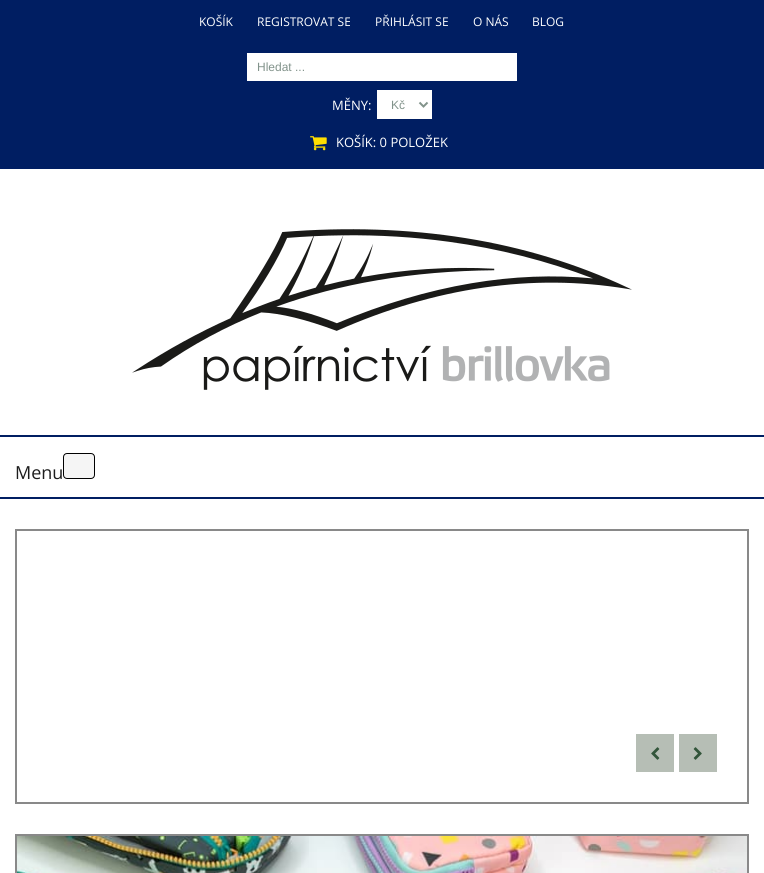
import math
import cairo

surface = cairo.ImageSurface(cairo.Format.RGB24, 764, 873)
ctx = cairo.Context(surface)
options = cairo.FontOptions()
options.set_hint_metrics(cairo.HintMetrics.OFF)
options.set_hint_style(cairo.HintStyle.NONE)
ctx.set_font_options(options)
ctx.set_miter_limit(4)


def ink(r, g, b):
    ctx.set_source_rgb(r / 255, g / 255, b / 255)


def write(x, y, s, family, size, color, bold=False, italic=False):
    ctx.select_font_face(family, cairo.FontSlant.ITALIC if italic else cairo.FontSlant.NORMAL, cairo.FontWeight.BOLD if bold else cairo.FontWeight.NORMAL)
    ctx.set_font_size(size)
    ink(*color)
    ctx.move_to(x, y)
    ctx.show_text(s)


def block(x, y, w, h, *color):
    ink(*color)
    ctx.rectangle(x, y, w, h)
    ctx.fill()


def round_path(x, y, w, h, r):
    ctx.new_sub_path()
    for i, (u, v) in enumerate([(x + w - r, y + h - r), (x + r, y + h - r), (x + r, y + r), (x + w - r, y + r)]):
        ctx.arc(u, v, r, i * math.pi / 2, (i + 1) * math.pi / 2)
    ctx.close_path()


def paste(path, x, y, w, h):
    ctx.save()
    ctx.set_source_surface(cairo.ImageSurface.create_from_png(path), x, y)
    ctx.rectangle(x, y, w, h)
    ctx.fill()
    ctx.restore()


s1 = dict(family="Open Sans", size=12, color=(255, 255, 255))
s2 = dict(family="Liberation Sans", size=12, color=(130, 147, 139))
s3 = dict(family="Open Sans", size=13, color=(255, 255, 255))
s4 = dict(family="Open Sans", size=18, color=(29, 29, 29))

ink(0, 30, 98)
ctx.paint()
write(199, 26, "KOŠÍK", **s1)
write(257, 26, "REGISTROVAT SE", **s1)
write(375, 26, "PŘIHLÁSIT SE", **s1)
write(473, 26, "O NÁS", **s1)
write(532, 26, "BLOG", **s1)
block(247, 53, 270, 28, 255, 255, 255)
write(257, 71, "Hledat ...", **s2)
write(332, 110, "MĚNY:", **s3)
block(377, 90, 55, 29, 255, 255, 255)
ctx.new_path()
ctx.move_to(419.5, 102.5)
ctx.line_to(423.5, 106.5)
ctx.line_to(427.5, 102.5)
ink(130, 147, 139)
ctx.stroke()
write(391, 109, "Kč", **s2)
paste("pic1.png", 310, 136, 17, 15)
write(336, 147, "KOŠÍK: 0 POLOŽEK", **s3)
block(0, 169, 764, 328, 255, 255, 255)
paste("pic2.png", 132, 229, 500, 161)
block(0, 435, 764, 2, 0, 30, 98)
write(15, 479, "Menu", **s4)
ink(245, 245, 245)
round_path(63.5, 453.5, 31, 25, 3.5)
ctx.fill_preserve()
ink(0, 0, 0)
ctx.set_line_width(1)
ctx.stroke()
block(0, 499, 764, 374, 255, 255, 255)
ctx.rectangle(16, 530, 732, 273)
ink(137, 137, 137)
ctx.set_line_width(2)
ctx.stroke()
block(636, 734, 38, 38, 182, 190, 181)
paste("pic3.png", 651, 747, 9, 13)
block(679, 734, 38, 38, 182, 190, 181)
paste("pic4.png", 693, 747, 9, 13)
ctx.rectangle(16, 835, 732, 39)
ink(137, 137, 137)
ctx.stroke()
paste("pic5.png", 17, 836, 730, 37)
surface.write_to_png("screenshot.png")
